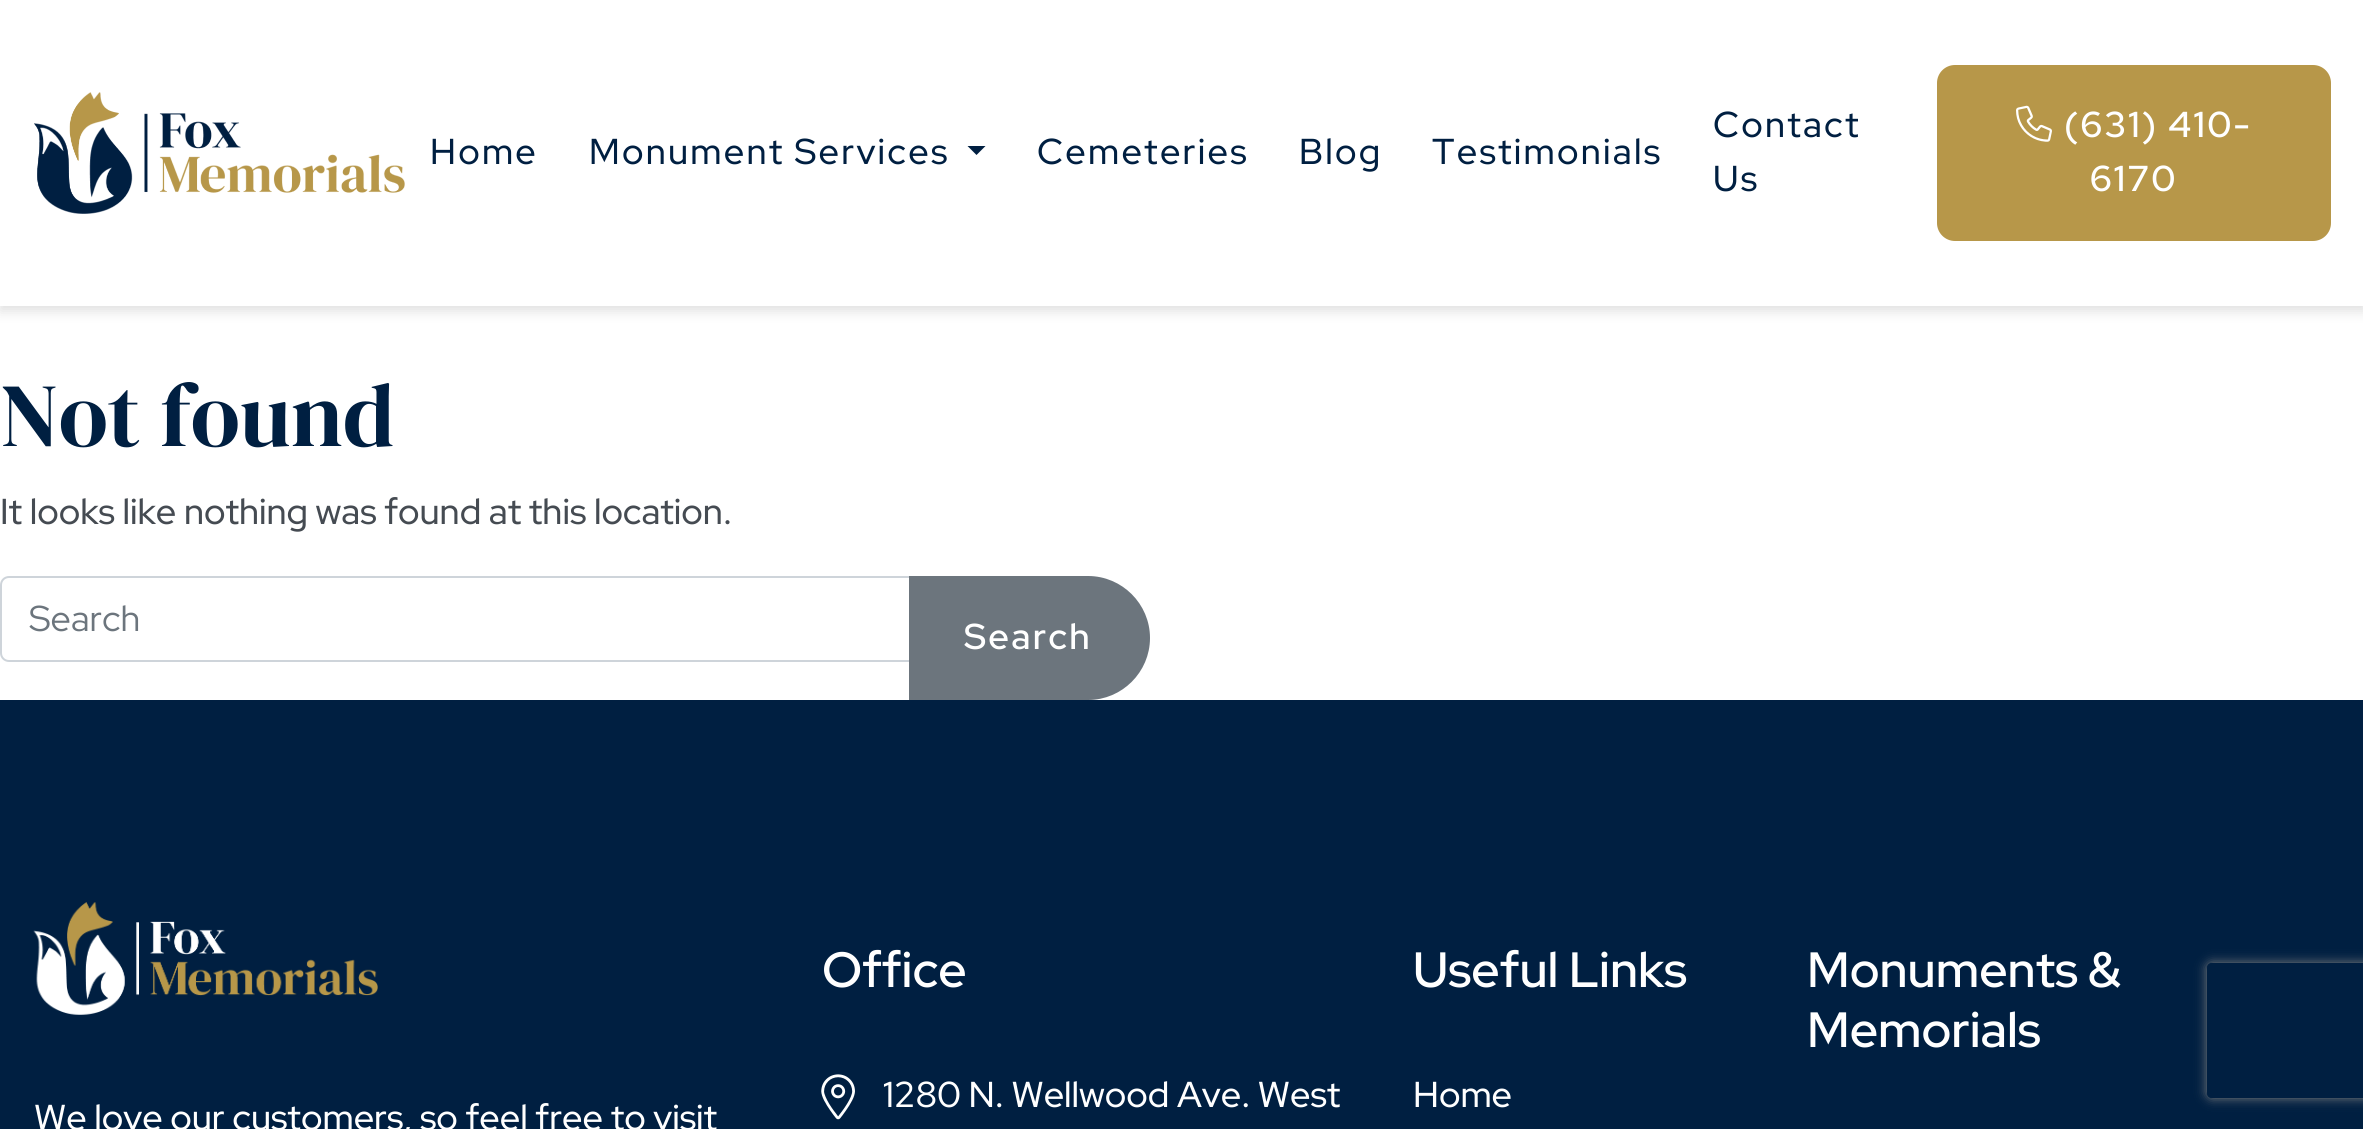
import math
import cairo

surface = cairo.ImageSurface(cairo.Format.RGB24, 2363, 1129)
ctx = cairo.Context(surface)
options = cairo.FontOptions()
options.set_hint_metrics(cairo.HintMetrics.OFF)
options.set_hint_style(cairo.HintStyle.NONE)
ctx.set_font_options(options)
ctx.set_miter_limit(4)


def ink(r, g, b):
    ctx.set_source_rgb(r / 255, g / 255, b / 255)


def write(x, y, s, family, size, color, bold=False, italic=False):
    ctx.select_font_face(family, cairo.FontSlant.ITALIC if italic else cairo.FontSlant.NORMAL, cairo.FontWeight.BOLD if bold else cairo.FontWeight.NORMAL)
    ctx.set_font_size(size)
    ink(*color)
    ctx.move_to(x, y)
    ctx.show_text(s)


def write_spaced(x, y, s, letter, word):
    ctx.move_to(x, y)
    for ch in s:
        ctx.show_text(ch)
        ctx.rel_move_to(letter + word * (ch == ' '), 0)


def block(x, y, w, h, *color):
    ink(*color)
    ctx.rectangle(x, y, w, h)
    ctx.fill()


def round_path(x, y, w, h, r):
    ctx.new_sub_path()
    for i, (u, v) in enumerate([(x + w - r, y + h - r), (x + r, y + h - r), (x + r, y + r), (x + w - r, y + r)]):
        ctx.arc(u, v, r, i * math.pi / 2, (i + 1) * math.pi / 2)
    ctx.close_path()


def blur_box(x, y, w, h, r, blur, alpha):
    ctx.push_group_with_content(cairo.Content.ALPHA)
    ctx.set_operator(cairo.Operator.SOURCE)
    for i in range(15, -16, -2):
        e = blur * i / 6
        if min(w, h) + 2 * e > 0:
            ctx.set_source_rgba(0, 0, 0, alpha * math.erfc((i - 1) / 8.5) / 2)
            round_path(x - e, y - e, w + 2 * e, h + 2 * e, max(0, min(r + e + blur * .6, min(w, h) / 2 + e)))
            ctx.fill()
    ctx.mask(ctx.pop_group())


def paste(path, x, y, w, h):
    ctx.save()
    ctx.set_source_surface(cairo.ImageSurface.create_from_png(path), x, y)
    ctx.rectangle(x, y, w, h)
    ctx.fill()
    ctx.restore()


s1 = dict(family="DM Serif Display", size=90, color=(0, 31, 65))
s2 = dict(family="Red Hat Display Medium", size=36, color=(69, 75, 82))
s3 = dict(family="Red Hat Display", size=36, color=(108, 117, 125))
s4 = dict(family="Red Hat Display SemiBold", size=49.5, color=(255, 255, 255))
s5 = dict(family="Red Hat Display Medium", size=36, color=(255, 255, 255))

ink(255, 255, 255)
ctx.paint()
ink(0, 0, 0)
blur_box(0, 5, 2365, 306, 0, 6.5, 0.13)
block(0, 0, 2363, 306, 255, 255, 255)
paste("pic1.png", 34, 92, 371, 122)
ctx.select_font_face("Red Hat Display Medium")
ctx.set_font_size(36)
ink(0, 31, 65)
write_spaced(430, 164, "Home", 2.25, 0)
write_spaced(589, 164, "Monument Services", 2.25, 0)
ctx.new_path()
ctx.move_to(967.5, 146)
ctx.line_to(985.5, 146)
ctx.line_to(976.5, 155)
ctx.close_path()
ctx.fill()
write_spaced(1037, 164, "Cemeteries", 2.25, 0)
write_spaced(1299, 164, "Blog", 2.25, 0)
write_spaced(1432, 164, "Testimonials", 2.25, 0)
write_spaced(1713, 137, "Contact", 2.25, 0)
write_spaced(1713, 191, "Us", 2.25, 0)
ink(183, 151, 73)
round_path(1938, 66, 392, 174, 17)
ctx.fill_preserve()
ctx.stroke()
paste("pic2.png", 2016, 105, 36, 37)
ctx.select_font_face("Red Hat Display SemiBold")
ink(255, 255, 255)
write_spaced(2064, 137, "(631) 410-", 2.25, 0)
write_spaced(2090, 191, "6170", 2.25, 0)
write(0, 446, "Not found", **s1)
write(0, 524, "It looks like nothing was found at this location.", **s2)
ctx.new_path()
ctx.move_to(9, 577)
ctx.line_to(910, 577)
ctx.line_to(910, 661)
ctx.line_to(9, 661)
ctx.curve_to(4.5, 661, 1, 657.5, 1, 653)
ctx.line_to(1, 585)
ctx.curve_to(1, 580.5, 4.5, 577, 9, 577)
ctx.close_path()
ink(206, 212, 218)
ctx.stroke()
write(29, 631, "Search", **s3)
ctx.new_path()
ctx.move_to(910, 577)
ctx.line_to(1088, 577)
ctx.curve_to(1121.5, 577, 1149, 604.5, 1149, 638)
ctx.curve_to(1149, 671.5, 1121.5, 699, 1088, 699)
ctx.line_to(910, 699)
ctx.close_path()
ctx.fill_preserve()
ctx.stroke()
ctx.select_font_face("Red Hat Display SemiBold")
ink(255, 255, 255)
write_spaced(964, 649, "Search", 2.25, 0)
block(0, 700, 2363, 429, 0, 31, 65)
write(822, 987, "Office", **s4)
paste("pic3.png", 821, 1074, 34, 46)
write(883, 1107, "1280 N. Wellwood Ave. West", **s5)
write(1413, 987, "Useful Links", **s4)
write(1413, 1107, "Home", **s5)
write(1807, 987, "Monuments &", **s4)
write(1807, 1047, "Memorials", **s4)
paste("pic4.png", 33, 902, 345, 113)
write(34, 1130, "We love our customers, so feel free to visit", **s5)
ctx.save()
ctx.set_fill_rule(cairo.FillRule.EVEN_ODD)
ctx.new_path()
ctx.move_to(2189, 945)
ctx.line_to(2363, 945)
ctx.line_to(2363, 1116)
ctx.line_to(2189, 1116)
ctx.close_path()
ctx.move_to(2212, 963)
ctx.line_to(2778, 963)
ctx.curve_to(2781, 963, 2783, 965, 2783, 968)
ctx.line_to(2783, 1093)
ctx.curve_to(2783, 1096, 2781, 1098, 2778, 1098)
ctx.line_to(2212, 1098)
ctx.curve_to(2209, 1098, 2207, 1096, 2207, 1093)
ctx.line_to(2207, 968)
ctx.curve_to(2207, 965, 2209, 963, 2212, 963)
ctx.close_path()
ctx.clip()
ink(128, 128, 128)
blur_box(2207, 963, 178, 135, 5, 5.5, 1)
ctx.restore()
surface.write_to_png("screenshot.png")
